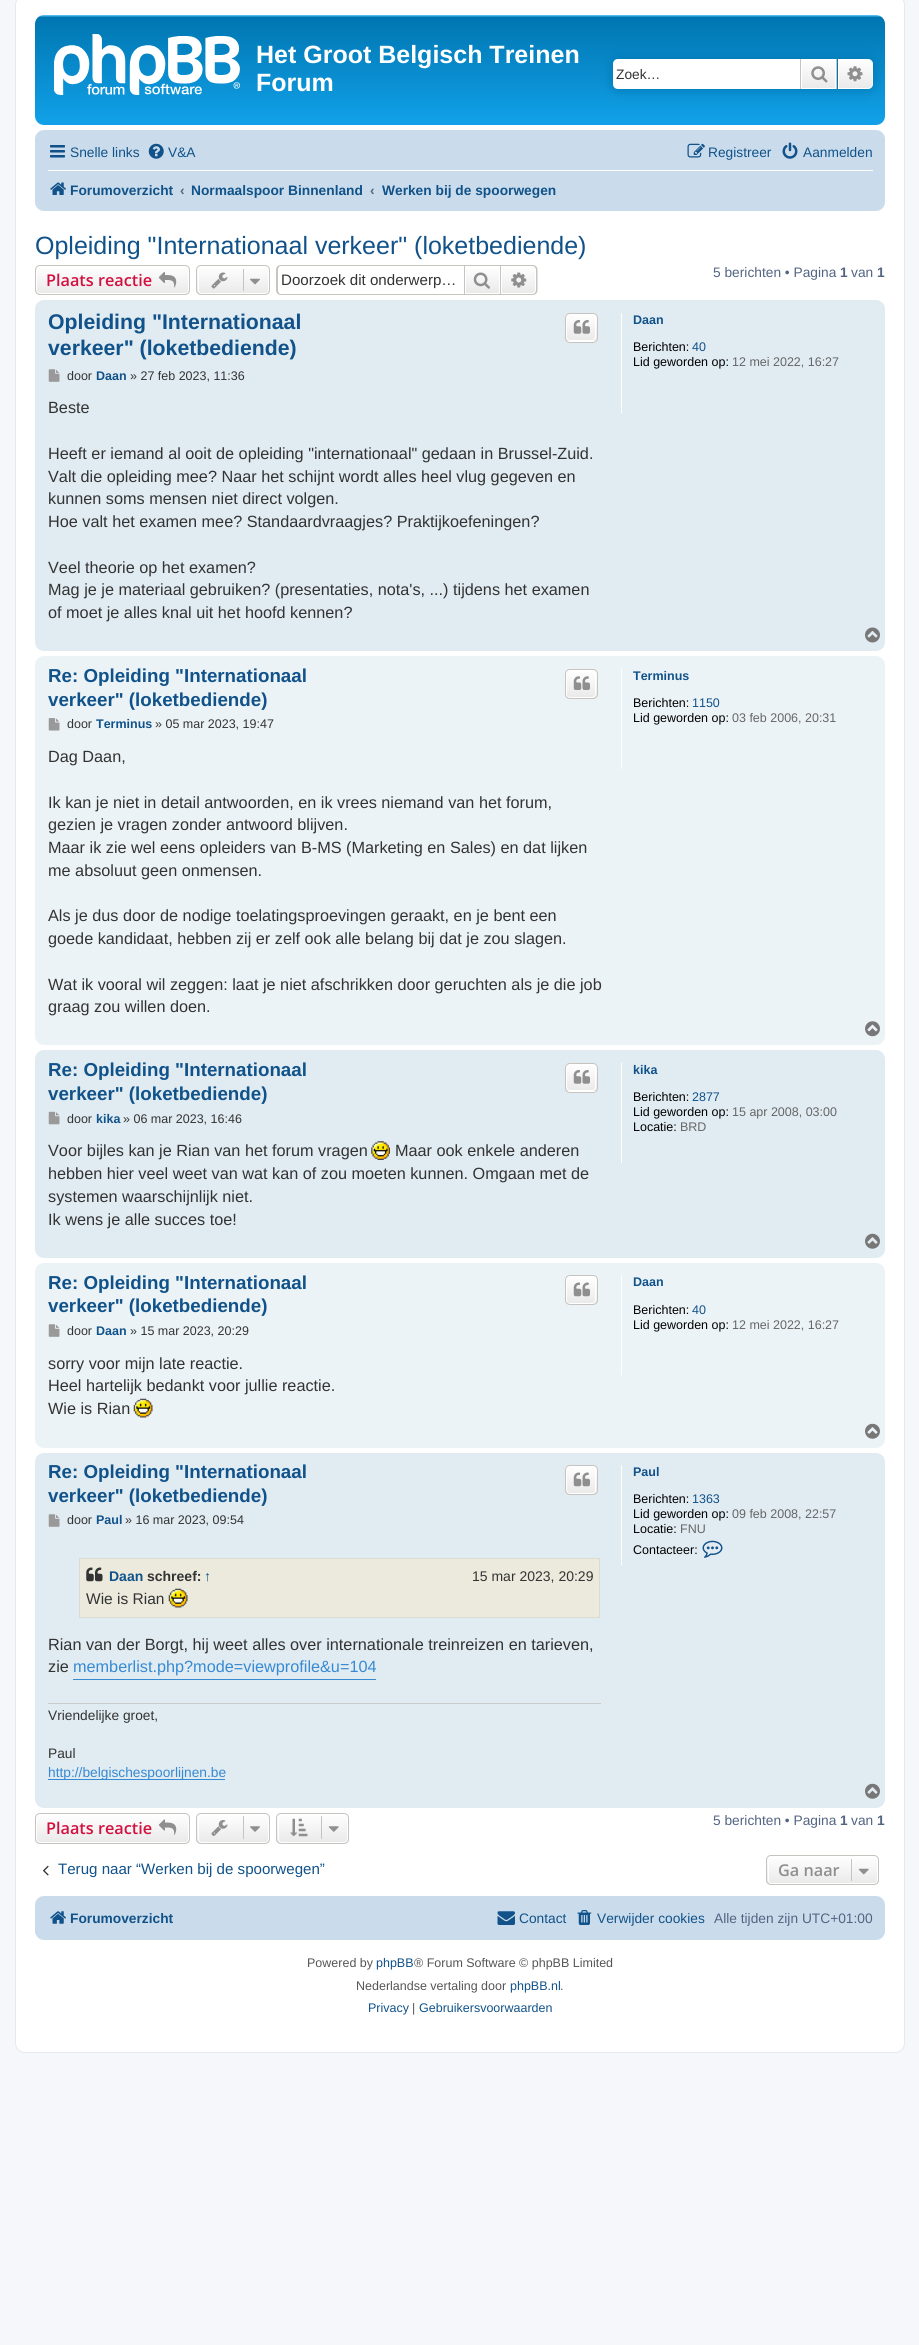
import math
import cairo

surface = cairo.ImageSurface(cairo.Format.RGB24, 919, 2345)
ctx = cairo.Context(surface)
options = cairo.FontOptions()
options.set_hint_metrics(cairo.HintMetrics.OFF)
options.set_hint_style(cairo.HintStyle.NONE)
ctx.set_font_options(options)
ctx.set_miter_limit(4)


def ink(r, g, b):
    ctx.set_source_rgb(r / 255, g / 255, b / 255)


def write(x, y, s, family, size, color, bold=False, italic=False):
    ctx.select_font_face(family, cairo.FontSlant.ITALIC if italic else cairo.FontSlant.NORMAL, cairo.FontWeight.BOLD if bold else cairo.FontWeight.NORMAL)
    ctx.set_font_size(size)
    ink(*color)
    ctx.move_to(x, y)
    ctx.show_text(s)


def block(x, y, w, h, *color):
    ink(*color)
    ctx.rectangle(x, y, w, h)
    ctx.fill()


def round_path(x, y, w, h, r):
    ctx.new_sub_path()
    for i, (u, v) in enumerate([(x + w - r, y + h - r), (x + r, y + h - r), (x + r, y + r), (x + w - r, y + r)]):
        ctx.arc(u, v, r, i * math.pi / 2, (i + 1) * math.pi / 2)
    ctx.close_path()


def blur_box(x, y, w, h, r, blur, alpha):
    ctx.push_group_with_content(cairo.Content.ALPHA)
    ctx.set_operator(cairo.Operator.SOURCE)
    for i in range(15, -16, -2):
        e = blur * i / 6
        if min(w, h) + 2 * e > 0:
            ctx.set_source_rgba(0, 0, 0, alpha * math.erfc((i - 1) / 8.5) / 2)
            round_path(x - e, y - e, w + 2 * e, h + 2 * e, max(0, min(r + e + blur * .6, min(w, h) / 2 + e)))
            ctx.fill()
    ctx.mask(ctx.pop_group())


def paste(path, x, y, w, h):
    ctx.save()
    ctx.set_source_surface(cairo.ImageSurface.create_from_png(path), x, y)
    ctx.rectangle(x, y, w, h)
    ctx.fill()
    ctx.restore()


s1 = dict(family="Liberation Sans", size=25, color=(255, 255, 255), bold=True)
s2 = dict(family="Liberation Sans", size=13.75, color=(51, 51, 51))
s3 = dict(family="Liberation Sans", size=13.75, color=(16, 82, 137))
s4 = dict(family="Liberation Sans", size=13.75, color=(16, 82, 137), bold=True)
s5 = dict(family="Liberation Sans", size=13.75, color=(83, 100, 130), bold=True)
s6 = dict(family="Liberation Sans", size=25, color=(16, 82, 137))
s7 = dict(family="Open Sans SemiBold", size=16.25, color=(211, 17, 65))
s8 = dict(family="Liberation Sans", size=15.1, color=(51, 51, 51))
s9 = dict(family="Liberation Sans", size=13.75, color=(83, 100, 130))
s10 = dict(family="Liberation Sans", size=21.25, color=(16, 82, 137), bold=True)
s11 = dict(family="Liberation Sans", size=12.5, color=(51, 51, 51))
s12 = dict(family="Liberation Sans", size=12.5, color=(16, 82, 137), bold=True)
s13 = dict(family="Liberation Sans", size=16.25, color=(51, 51, 51))
s14 = dict(family="Liberation Sans", size=12.5, color=(0, 0, 0))
s15 = dict(family="Liberation Sans", size=12.5, color=(16, 82, 137))
s16 = dict(family="Liberation Sans", size=12.5, color=(102, 102, 102))
s17 = dict(family="Liberation Sans", size=18.75, color=(16, 82, 137), bold=True)
s18 = dict(family="Liberation Sans", size=14, color=(16, 82, 137), bold=True)
s19 = dict(family="Liberation Sans", size=14, color=(51, 51, 51), bold=True)
s20 = dict(family="Liberation Sans", size=14, color=(51, 51, 51))
s21 = dict(family="Liberation Sans", size=15.5, color=(51, 51, 51))
s22 = dict(family="Liberation Sans", size=16.25, color=(54, 138, 210))
s23 = dict(family="Liberation Sans", size=13.75, color=(54, 138, 210))
s24 = dict(family="Liberation Sans", size=15.1, color=(16, 82, 137))
s25 = dict(family="Open Sans SemiBold", size=16.25, color=(143, 143, 143))
s26 = dict(family="Liberation Sans", size=12.5, color=(85, 85, 85))

ink(245, 247, 250)
ctx.paint()
ink(255, 255, 255)
round_path(15.5, -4.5, 889, 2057, 9.5)
ctx.fill_preserve()
ink(230, 233, 237)
ctx.set_line_width(1)
ctx.stroke()
gradient = cairo.LinearGradient(460, 15, 460, 130)
gradient.add_color_stop_rgba(0, 0.416, 0.808, 1, 1)
gradient.add_color_stop_rgba(0.02, 0, 0.463, 0.694, 1)
gradient.add_color_stop_rgba(1, 0.071, 0.639, 0.922, 1)
ctx.set_source(gradient)
round_path(35, 15, 850, 110, 9)
ctx.fill()
paste("pic1.png", 54, 34, 186, 61)
write(256, 63, "Het Groot Belgisch Treinen", **s1)
write(256, 91, "Forum", **s1)
ink(0, 117, 176)
blur_box(613, 59, 260, 30, 5, 6, 1)
ink(255, 255, 255)
ctx.new_path()
ctx.move_to(618, 59)
ctx.line_to(800, 59)
ctx.line_to(800, 89)
ctx.line_to(618, 89)
ctx.curve_to(615, 89, 613, 87, 613, 84)
ctx.line_to(613, 64)
ctx.curve_to(613, 61, 615, 59, 618, 59)
ctx.close_path()
ctx.fill()
write(616, 79, "Zoek…", **s2)
gradient = cairo.LinearGradient(819, 59, 819, 89)
gradient.add_color_stop_rgba(0, 1, 1, 1, 1)
gradient.add_color_stop_rgba(1, 0.914, 0.914, 0.914, 1)
ctx.set_source(gradient)
ctx.rectangle(802, 60, 33, 28)
ctx.fill()
ctx.rectangle(801.5, 59.5, 34, 29)
ink(255, 255, 255)
ctx.stroke()
block(836, 59, 1, 30, 199, 195, 191)
block(800, 59, 1, 30, 199, 195, 191)
paste("pic2.png", 811, 66, 17, 17)
gradient = cairo.LinearGradient(855, 59, 855, 89)
gradient.add_color_stop_rgba(0, 1, 1, 1, 1)
gradient.add_color_stop_rgba(1, 0.914, 0.914, 0.914, 1)
ctx.set_source(gradient)
ctx.new_path()
ctx.move_to(838.5, 59.5)
ctx.line_to(868, 59.5)
ctx.curve_to(870.5, 59.5, 872.5, 61.5, 872.5, 64)
ctx.line_to(872.5, 84)
ctx.curve_to(872.5, 86.5, 870.5, 88.5, 868, 88.5)
ctx.line_to(838.5, 88.5)
ctx.close_path()
ctx.fill_preserve()
ink(255, 255, 255)
ctx.stroke()
paste("pic3.png", 847, 66, 16, 16)
ink(202, 220, 235)
round_path(35, 130, 850, 81, 9)
ctx.fill()
paste("pic4.png", 50, 145, 15, 13)
write(70, 157, "Snelle links", **s3)
paste("pic5.png", 148, 143, 16, 16)
write(168, 157, "V&A", **s3)
paste("pic6.png", 687, 143, 18, 15)
write(708, 157, "Registreer", **s3)
paste("pic7.png", 782, 142, 16, 17)
write(803, 157, "Aanmelden", **s3)
block(48, 170, 825, 1, 255, 255, 255)
paste("pic8.png", 50, 182, 16, 13)
write(70, 195, "Forumoverzicht", **s4)
write(180, 195, "‹", **s5)
write(191, 195, "Normaalspoor Binnenland", **s4)
write(370, 195, "‹", **s5)
write(382, 195, "Werken bij de spoorwegen", **s4)
write(35, 254, "Opleiding \"Internationaal verkeer\" (loketbediende)", **s6)
ctx.save()
round_path(35, 265, 155, 30, 5)
ctx.clip()
gradient = cairo.LinearGradient(113, 266, 113, 294)
gradient.add_color_stop_rgba(0, 1, 1, 1, 1)
gradient.add_color_stop_rgba(1, 0.914, 0.914, 0.914, 1)
ctx.set_source(gradient)
ctx.rectangle(35, 266, 155, 28)
ctx.fill()
ctx.restore()
round_path(36.5, 266.5, 152, 27, 3.5)
ink(255, 255, 255)
ctx.stroke()
round_path(35.5, 265.5, 154, 29, 4.5)
ink(199, 195, 191)
ctx.stroke()
write(46, 286, "Plaats reactie", **s7)
paste("pic9.png", 158, 272, 19, 16)
ctx.save()
round_path(196, 265, 74, 30, 5)
ctx.clip()
gradient = cairo.LinearGradient(233, 266, 233, 294)
gradient.add_color_stop_rgba(0, 1, 1, 1, 1)
gradient.add_color_stop_rgba(1, 0.914, 0.914, 0.914, 1)
ctx.set_source(gradient)
ctx.rectangle(196, 266, 74, 28)
ctx.fill()
ctx.restore()
round_path(198.5, 266.5, 70, 27, 3.5)
ink(255, 255, 255)
ctx.stroke()
round_path(196.5, 265.5, 73, 29, 4.5)
ink(199, 195, 191)
ctx.stroke()
paste("pic10.png", 211, 272, 17, 17)
block(243, 269, 1, 22, 199, 195, 191)
paste("pic11.png", 250, 278, 10, 7)
ctx.set_fill_rule(cairo.FillRule.EVEN_ODD)
ctx.new_path()
ctx.move_to(281, 265)
ctx.line_to(464, 265)
ctx.line_to(464, 295)
ctx.line_to(281, 295)
ctx.curve_to(278, 295, 276, 293, 276, 290)
ctx.line_to(276, 270)
ctx.curve_to(276, 267, 278, 265, 281, 265)
ctx.close_path()
ctx.move_to(281, 266)
ctx.line_to(464, 266)
ctx.line_to(464, 294)
ctx.line_to(281, 294)
ctx.curve_to(279, 294, 278, 292, 278, 290)
ctx.line_to(278, 270)
ctx.curve_to(278, 268, 279, 266, 281, 266)
ctx.close_path()
ctx.fill()
write(281, 285, "Doorzoek dit onderwerp…", **s8)
gradient = cairo.LinearGradient(483, 266, 483, 294)
gradient.add_color_stop_rgba(0, 1, 1, 1, 1)
gradient.add_color_stop_rgba(1, 0.914, 0.914, 0.914, 1)
ctx.set_source(gradient)
ctx.rectangle(466, 269, 33, 24)
ctx.fill()
ctx.rectangle(464.5, 265.5, 36, 29)
ink(199, 195, 191)
ctx.stroke()
paste("pic12.png", 473, 272, 17, 17)
gradient = cairo.LinearGradient(519, 266, 519, 294)
gradient.add_color_stop_rgba(0, 1, 1, 1, 1)
gradient.add_color_stop_rgba(1, 0.914, 0.914, 0.914, 1)
ctx.set_source(gradient)
ctx.new_path()
ctx.move_to(501.5, 266.5)
ctx.line_to(532, 266.5)
ctx.curve_to(534, 266.5, 535.5, 268, 535.5, 270)
ctx.line_to(535.5, 290)
ctx.curve_to(535.5, 292, 534, 293.5, 532, 293.5)
ctx.line_to(501.5, 293.5)
ctx.close_path()
ctx.fill_preserve()
ink(255, 255, 255)
ctx.stroke()
ink(199, 195, 191)
ctx.new_path()
ctx.move_to(501, 265)
ctx.line_to(532.5, 265)
ctx.curve_to(535.5, 265, 537.5, 267, 537.5, 270)
ctx.line_to(537.5, 290)
ctx.curve_to(537.5, 293, 535.5, 295, 532.5, 295)
ctx.line_to(501, 295)
ctx.close_path()
ctx.move_to(501, 266)
ctx.line_to(532.5, 266)
ctx.curve_to(534.5, 266, 536, 268, 536, 270)
ctx.line_to(536, 290)
ctx.curve_to(536, 292, 534.5, 294, 532.5, 294)
ctx.line_to(501, 294)
ctx.close_path()
ctx.fill()
paste("pic13.png", 511, 272, 16, 16)
write(713, 277, "5 berichten • Pagina", **s9)
write(840, 277, "1", **s5)
write(851, 277, "van", **s9)
write(877, 277, "1", **s5)
ink(225, 235, 242)
round_path(35, 300, 850, 351, 9)
ctx.fill()
write(48, 329, "Opleiding \"Internationaal", **s10)
write(48, 355, "verkeer\" (loketbediende)", **s10)
ctx.save()
ctx.set_fill_rule(cairo.FillRule.WINDING)
round_path(565, 313, 33, 30, 5)
ctx.clip()
gradient = cairo.LinearGradient(581, 314, 581, 341)
gradient.add_color_stop_rgba(0, 1, 1, 1, 1)
gradient.add_color_stop_rgba(1, 0.914, 0.914, 0.914, 1)
ctx.set_source(gradient)
ctx.rectangle(565, 314, 33, 27)
ctx.fill()
gradient = cairo.LinearGradient(581, 341, 581, 369)
gradient.add_color_stop_rgba(0, 1, 1, 1, 1)
gradient.add_color_stop_rgba(1, 0.914, 0.914, 0.914, 1)
ctx.set_source(gradient)
ctx.rectangle(565, 341, 33, 2)
ctx.fill()
ctx.restore()
round_path(566.5, 314.5, 29, 26, 3.5)
ink(255, 255, 255)
ctx.stroke()
round_path(565.5, 313.5, 32, 29, 4.5)
ink(199, 195, 191)
ctx.stroke()
paste("pic14.png", 573, 320, 17, 14)
paste("pic15.png", 48, 369, 12, 13)
write(67, 380, "door", **s11)
write(96, 380, "Daan", **s12)
write(130, 380, "» 27 feb 2023, 11:36", **s11)
write(48, 413, "Beste", **s13)
write(48, 459, "Heeft er iemand al ooit de opleiding \"internationaal\" gedaan in Brussel-Zuid.", **s13)
write(48, 482, "Valt die opleiding mee? Naar het schijnt wordt alles heel vlug gegeven en", **s13)
write(48, 504, "kunnen soms mensen niet direct volgen.", **s13)
write(48, 527, "Hoe valt het examen mee? Standaardvraagjes? Praktijkoefeningen?", **s13)
write(48, 573, "Veel theorie op het examen?", **s13)
write(48, 595, "Mag je je materiaal gebruiken? (presentaties, nota's, ...) tijdens het examen", **s13)
write(48, 618, "of moet je alles knal uit het hoofd kennen?", **s13)
block(621, 313, 1, 100, 255, 255, 255)
write(633, 324, "Daan", **s12)
write(633, 351, "Berichten:", **s14)
write(692, 351, "40", **s15)
write(633, 366, "Lid geworden op:", **s14)
write(732, 366, "12 mei 2022, 16:27", **s16)
paste("pic16.png", 865, 627, 15, 16)
ink(236, 243, 247)
round_path(35, 656, 850, 389, 9)
ctx.fill()
write(48, 682, "Re: Opleiding \"Internationaal", **s17)
write(48, 706, "verkeer\" (loketbediende)", **s17)
ctx.save()
ctx.set_fill_rule(cairo.FillRule.WINDING)
round_path(565, 669, 33, 30, 5)
ctx.clip()
gradient = cairo.LinearGradient(581, 670, 581, 698)
gradient.add_color_stop_rgba(0, 1, 1, 1, 1)
gradient.add_color_stop_rgba(1, 0.914, 0.914, 0.914, 1)
ctx.set_source(gradient)
ctx.rectangle(565, 670, 33, 28)
ctx.fill()
ctx.restore()
round_path(566.5, 670.5, 29, 27, 3.5)
ink(255, 255, 255)
ctx.stroke()
round_path(565.5, 669.5, 32, 29, 4.5)
ink(199, 195, 191)
ctx.stroke()
paste("pic17.png", 573, 676, 17, 14)
paste("pic18.png", 48, 718, 12, 13)
write(67, 728, "door", **s11)
write(96, 728, "Terminus", **s12)
write(155, 728, "» 05 mar 2023, 19:47", **s11)
write(48, 762, "Dag Daan,", **s13)
write(48, 808, "Ik kan je niet in detail antwoorden, en ik vrees niemand van het forum,", **s13)
write(48, 830, "gezien je vragen zonder antwoord blijven.", **s13)
write(48, 853, "Maar ik zie wel eens opleiders van B-MS (Marketing en Sales) en dat lijken", **s13)
write(48, 876, "me absoluut geen onmensen.", **s13)
write(48, 921, "Als je dus door de nodige toelatingsproevingen geraakt, en je bent een", **s13)
write(48, 944, "goede kandidaat, hebben zij er zelf ook alle belang bij dat je zou slagen.", **s13)
write(48, 990, "Wat ik vooral wil zeggen: laat je niet afschrikken door geruchten als je die job", **s13)
write(48, 1012, "graag zou willen doen.", **s13)
block(621, 669, 1, 100, 255, 255, 255)
write(633, 680, "Terminus", **s12)
write(633, 707, "Berichten:", **s14)
write(692, 707, "1150", **s15)
write(633, 722, "Lid geworden op:", **s14)
write(732, 722, "03 feb 2006, 20:31", **s16)
paste("pic19.png", 865, 1021, 15, 16)
ink(225, 235, 242)
round_path(35, 1050, 850, 208, 9)
ctx.fill()
write(48, 1076, "Re: Opleiding \"Internationaal", **s17)
write(48, 1100, "verkeer\" (loketbediende)", **s17)
ctx.save()
ctx.set_fill_rule(cairo.FillRule.WINDING)
round_path(565, 1063, 33, 30, 5)
ctx.clip()
gradient = cairo.LinearGradient(581, 1064, 581, 1091)
gradient.add_color_stop_rgba(0, 1, 1, 1, 1)
gradient.add_color_stop_rgba(1, 0.914, 0.914, 0.914, 1)
ctx.set_source(gradient)
ctx.rectangle(565, 1064, 33, 27)
ctx.fill()
gradient = cairo.LinearGradient(581, 1091, 581, 1119)
gradient.add_color_stop_rgba(0, 1, 1, 1, 1)
gradient.add_color_stop_rgba(1, 0.914, 0.914, 0.914, 1)
ctx.set_source(gradient)
ctx.rectangle(565, 1091, 33, 2)
ctx.fill()
ctx.restore()
round_path(566.5, 1064.5, 29, 26, 3.5)
ink(255, 255, 255)
ctx.stroke()
round_path(565.5, 1063.5, 32, 29, 4.5)
ink(199, 195, 191)
ctx.stroke()
paste("pic14.png", 573, 1070, 17, 14)
paste("pic20.png", 48, 1111, 12, 14)
write(67, 1123, "door", **s11)
write(96, 1123, "kika", **s12)
write(123, 1123, "» 06 mar 2023, 16:46", **s11)
write(48, 1156, "Voor bijles kan je Rian van het forum vragen", **s13)
paste("pic21.png", 371, 1141, 19, 19)
write(395, 1156, "Maar ook enkele anderen", **s13)
write(48, 1179, "hebben hier veel weet van wat kan of zou moeten kunnen. Omgaan met de", **s13)
write(48, 1202, "systemen waarschijnlijk niet.", **s13)
write(48, 1225, "Ik wens je alle succes toe!", **s13)
block(621, 1063, 1, 100, 255, 255, 255)
write(633, 1074, "kika", **s12)
write(633, 1101, "Berichten:", **s14)
write(692, 1101, "2877", **s15)
write(633, 1116, "Lid geworden op:", **s14)
write(732, 1116, "15 apr 2008, 03:00", **s16)
write(633, 1131, "Locatie:", **s14)
write(680, 1131, "BRD", **s16)
paste("pic22.png", 865, 1233, 15, 16)
ink(236, 243, 247)
round_path(35, 1263, 850, 185, 9)
ctx.fill()
write(48, 1289, "Re: Opleiding \"Internationaal", **s17)
write(48, 1312, "verkeer\" (loketbediende)", **s17)
ctx.save()
ctx.set_fill_rule(cairo.FillRule.WINDING)
round_path(565, 1275, 33, 30, 5)
ctx.clip()
gradient = cairo.LinearGradient(581, 1276, 581, 1304)
gradient.add_color_stop_rgba(0, 1, 1, 1, 1)
gradient.add_color_stop_rgba(1, 0.914, 0.914, 0.914, 1)
ctx.set_source(gradient)
ctx.rectangle(565, 1276, 33, 28)
ctx.fill()
ctx.restore()
round_path(566.5, 1276.5, 29, 27, 3.5)
ink(255, 255, 255)
ctx.stroke()
round_path(565.5, 1275.5, 32, 29, 4.5)
ink(199, 195, 191)
ctx.stroke()
paste("pic23.png", 573, 1282, 17, 15)
paste("pic24.png", 48, 1324, 12, 13)
write(67, 1335, "door", **s11)
write(96, 1335, "Daan", **s12)
write(130, 1335, "» 15 mar 2023, 20:29", **s11)
write(48, 1369, "sorry voor mijn late reactie.", **s13)
write(48, 1391, "Heel hartelijk bedankt voor jullie reactie.", **s13)
write(48, 1414, "Wie is Rian", **s13)
paste("pic25.png", 133, 1398, 20, 20)
block(621, 1275, 1, 100, 255, 255, 255)
write(633, 1286, "Daan", **s12)
write(633, 1314, "Berichten:", **s14)
write(692, 1314, "40", **s15)
write(633, 1329, "Lid geworden op:", **s14)
write(732, 1329, "12 mei 2022, 16:27", **s16)
paste("pic26.png", 865, 1423, 15, 16)
ink(225, 235, 242)
round_path(35, 1453, 850, 355, 9)
ctx.fill()
write(48, 1478, "Re: Opleiding \"Internationaal", **s17)
write(48, 1502, "verkeer\" (loketbediende)", **s17)
ctx.save()
ctx.set_fill_rule(cairo.FillRule.WINDING)
round_path(565, 1465, 33, 30, 5)
ctx.clip()
gradient = cairo.LinearGradient(581, 1466, 581, 1494)
gradient.add_color_stop_rgba(0, 1, 1, 1, 1)
gradient.add_color_stop_rgba(1, 0.914, 0.914, 0.914, 1)
ctx.set_source(gradient)
ctx.rectangle(565, 1466, 33, 28)
ctx.fill()
ctx.restore()
round_path(566.5, 1466.5, 29, 27, 3.5)
ink(255, 255, 255)
ctx.stroke()
round_path(565.5, 1465.5, 32, 29, 4.5)
ink(199, 195, 191)
ctx.stroke()
paste("pic23.png", 573, 1472, 17, 15)
paste("pic15.png", 48, 1514, 12, 13)
write(67, 1524, "door", **s11)
write(96, 1524, "Paul", **s12)
write(125, 1524, "» 16 mar 2023, 09:54", **s11)
ink(235, 234, 221)
ctx.rectangle(79.5, 1558.5, 520, 59)
ctx.fill_preserve()
ink(219, 219, 206)
ctx.stroke()
paste("pic27.png", 86, 1567, 17, 15)
write(109, 1581, "Daan", **s18)
write(147, 1581, "schreef:", **s19)
write(204, 1581, "↑", **s18)
write(472, 1581, "15 mar 2023, 20:29", **s20)
write(86, 1604, "Wie is Rian", **s21)
paste("pic28.png", 168, 1588, 20, 20)
write(48, 1650, "Rian van der Borgt, hij weet alles over internationale treinreizen en tarieven,", **s13)
write(48, 1672, "zie", **s13)
block(73, 1679, 303, 1, 54, 138, 210)
write(73, 1672, "memberlist.php?mode=viewprofile&u=104", **s22)
block(48, 1703, 553, 1, 204, 204, 204)
write(48, 1720, "Vriendelijke groet,", **s2)
write(48, 1758, "Paul", **s2)
block(48, 1779, 177, 1, 54, 138, 210)
write(48, 1777, "http://belgischespoorlijnen.be", **s23)
block(621, 1465, 1, 100, 255, 255, 255)
write(633, 1476, "Paul", **s12)
write(633, 1503, "Berichten:", **s14)
write(692, 1503, "1363", **s15)
write(633, 1518, "Lid geworden op:", **s14)
write(732, 1518, "09 feb 2008, 22:57", **s16)
write(633, 1533, "Locatie:", **s14)
write(680, 1533, "FNU", **s16)
write(633, 1554, "Contacteer:", **s14)
paste("pic29.png", 702, 1540, 21, 18)
paste("pic22.png", 865, 1783, 15, 16)
ctx.save()
ctx.set_fill_rule(cairo.FillRule.WINDING)
round_path(35, 1813, 155, 31, 5)
ctx.clip()
gradient = cairo.LinearGradient(113, 1814, 113, 1843)
gradient.add_color_stop_rgba(0, 1, 1, 1, 1)
gradient.add_color_stop_rgba(1, 0.914, 0.914, 0.914, 1)
ctx.set_source(gradient)
ctx.rectangle(35, 1814, 155, 29)
ctx.fill()
ctx.restore()
round_path(36.5, 1814.5, 152, 28, 3.5)
ink(255, 255, 255)
ctx.stroke()
round_path(35.5, 1813.5, 154, 30, 4.5)
ink(199, 195, 191)
ctx.stroke()
write(46, 1834, "Plaats reactie", **s7)
paste("pic30.png", 158, 1819, 19, 16)
ctx.save()
ctx.set_fill_rule(cairo.FillRule.WINDING)
round_path(196, 1813, 74, 31, 5)
ctx.clip()
gradient = cairo.LinearGradient(233, 1814, 233, 1843)
gradient.add_color_stop_rgba(0, 1, 1, 1, 1)
gradient.add_color_stop_rgba(1, 0.914, 0.914, 0.914, 1)
ctx.set_source(gradient)
ctx.rectangle(196, 1814, 74, 29)
ctx.fill()
ctx.restore()
round_path(198.5, 1814.5, 70, 28, 3.5)
ink(255, 255, 255)
ctx.stroke()
round_path(196.5, 1813.5, 73, 30, 4.5)
ink(199, 195, 191)
ctx.stroke()
paste("pic31.png", 211, 1820, 17, 16)
block(243, 1816, 1, 23, 199, 195, 191)
paste("pic32.png", 250, 1826, 10, 6)
ctx.save()
ctx.set_fill_rule(cairo.FillRule.WINDING)
round_path(276, 1813, 73, 31, 5)
ctx.clip()
gradient = cairo.LinearGradient(313, 1814, 313, 1843)
gradient.add_color_stop_rgba(0, 1, 1, 1, 1)
gradient.add_color_stop_rgba(1, 0.914, 0.914, 0.914, 1)
ctx.set_source(gradient)
ctx.rectangle(276, 1814, 73, 29)
ctx.fill()
ctx.restore()
round_path(278.5, 1814.5, 69, 28, 3.5)
ink(255, 255, 255)
ctx.stroke()
round_path(276.5, 1813.5, 72, 30, 4.5)
ink(199, 195, 191)
ctx.stroke()
paste("pic33.png", 290, 1818, 18, 19)
block(321, 1816, 1, 23, 199, 195, 191)
paste("pic34.png", 328, 1826, 11, 6)
write(713, 1825, "5 berichten • Pagina", **s9)
write(840, 1825, "1", **s5)
write(851, 1825, "van", **s9)
write(877, 1825, "1", **s5)
paste("pic35.png", 43, 1865, 6, 11)
write(58, 1874, "Terug naar “Werken bij de spoorwegen”", **s24)
ctx.save()
ctx.set_fill_rule(cairo.FillRule.WINDING)
round_path(766, 1855, 113, 30, 5)
ctx.clip()
gradient = cairo.LinearGradient(823, 1856, 823, 1884)
gradient.add_color_stop_rgba(0, 1, 1, 1, 1)
gradient.add_color_stop_rgba(1, 0.914, 0.914, 0.914, 1)
ctx.set_source(gradient)
ctx.rectangle(766, 1856, 113, 28)
ctx.fill()
ctx.restore()
round_path(768.5, 1856.5, 109, 27, 3.5)
ink(255, 255, 255)
ctx.stroke()
round_path(766.5, 1855.5, 112, 29, 4.5)
ink(199, 195, 191)
ctx.stroke()
write(778, 1876, "Ga naar", **s25)
block(851, 1859, 1, 22, 199, 195, 191)
paste("pic36.png", 858, 1868, 11, 7)
ink(202, 220, 235)
round_path(35, 1896, 850, 44, 9)
ctx.fill()
paste("pic37.png", 50, 1911, 16, 13)
write(70, 1923, "Forumoverzicht", **s4)
paste("pic38.png", 497, 1911, 18, 14)
write(519, 1923, "Contact", **s3)
paste("pic39.png", 577, 1910, 15, 15)
write(597, 1923, "Verwijder cookies", **s3)
write(714, 1923, "Alle tijden zijn UTC+01:00", **s9)
write(307, 1967, "Powered by", **s26)
write(376, 1967, "phpBB", **s15)
write(414, 1967, "® Forum Software © phpBB Limited", **s26)
write(356, 1990, "Nederlandse vertaling door", **s26)
write(510, 1990, "phpBB.nl", **s15)
write(560, 1990, ".", **s26)
write(368, 2012, "Privacy", **s15)
write(412, 2012, "|", **s26)
write(419, 2012, "Gebruikersvoorwaarden", **s15)
surface.write_to_png("screenshot.png")
